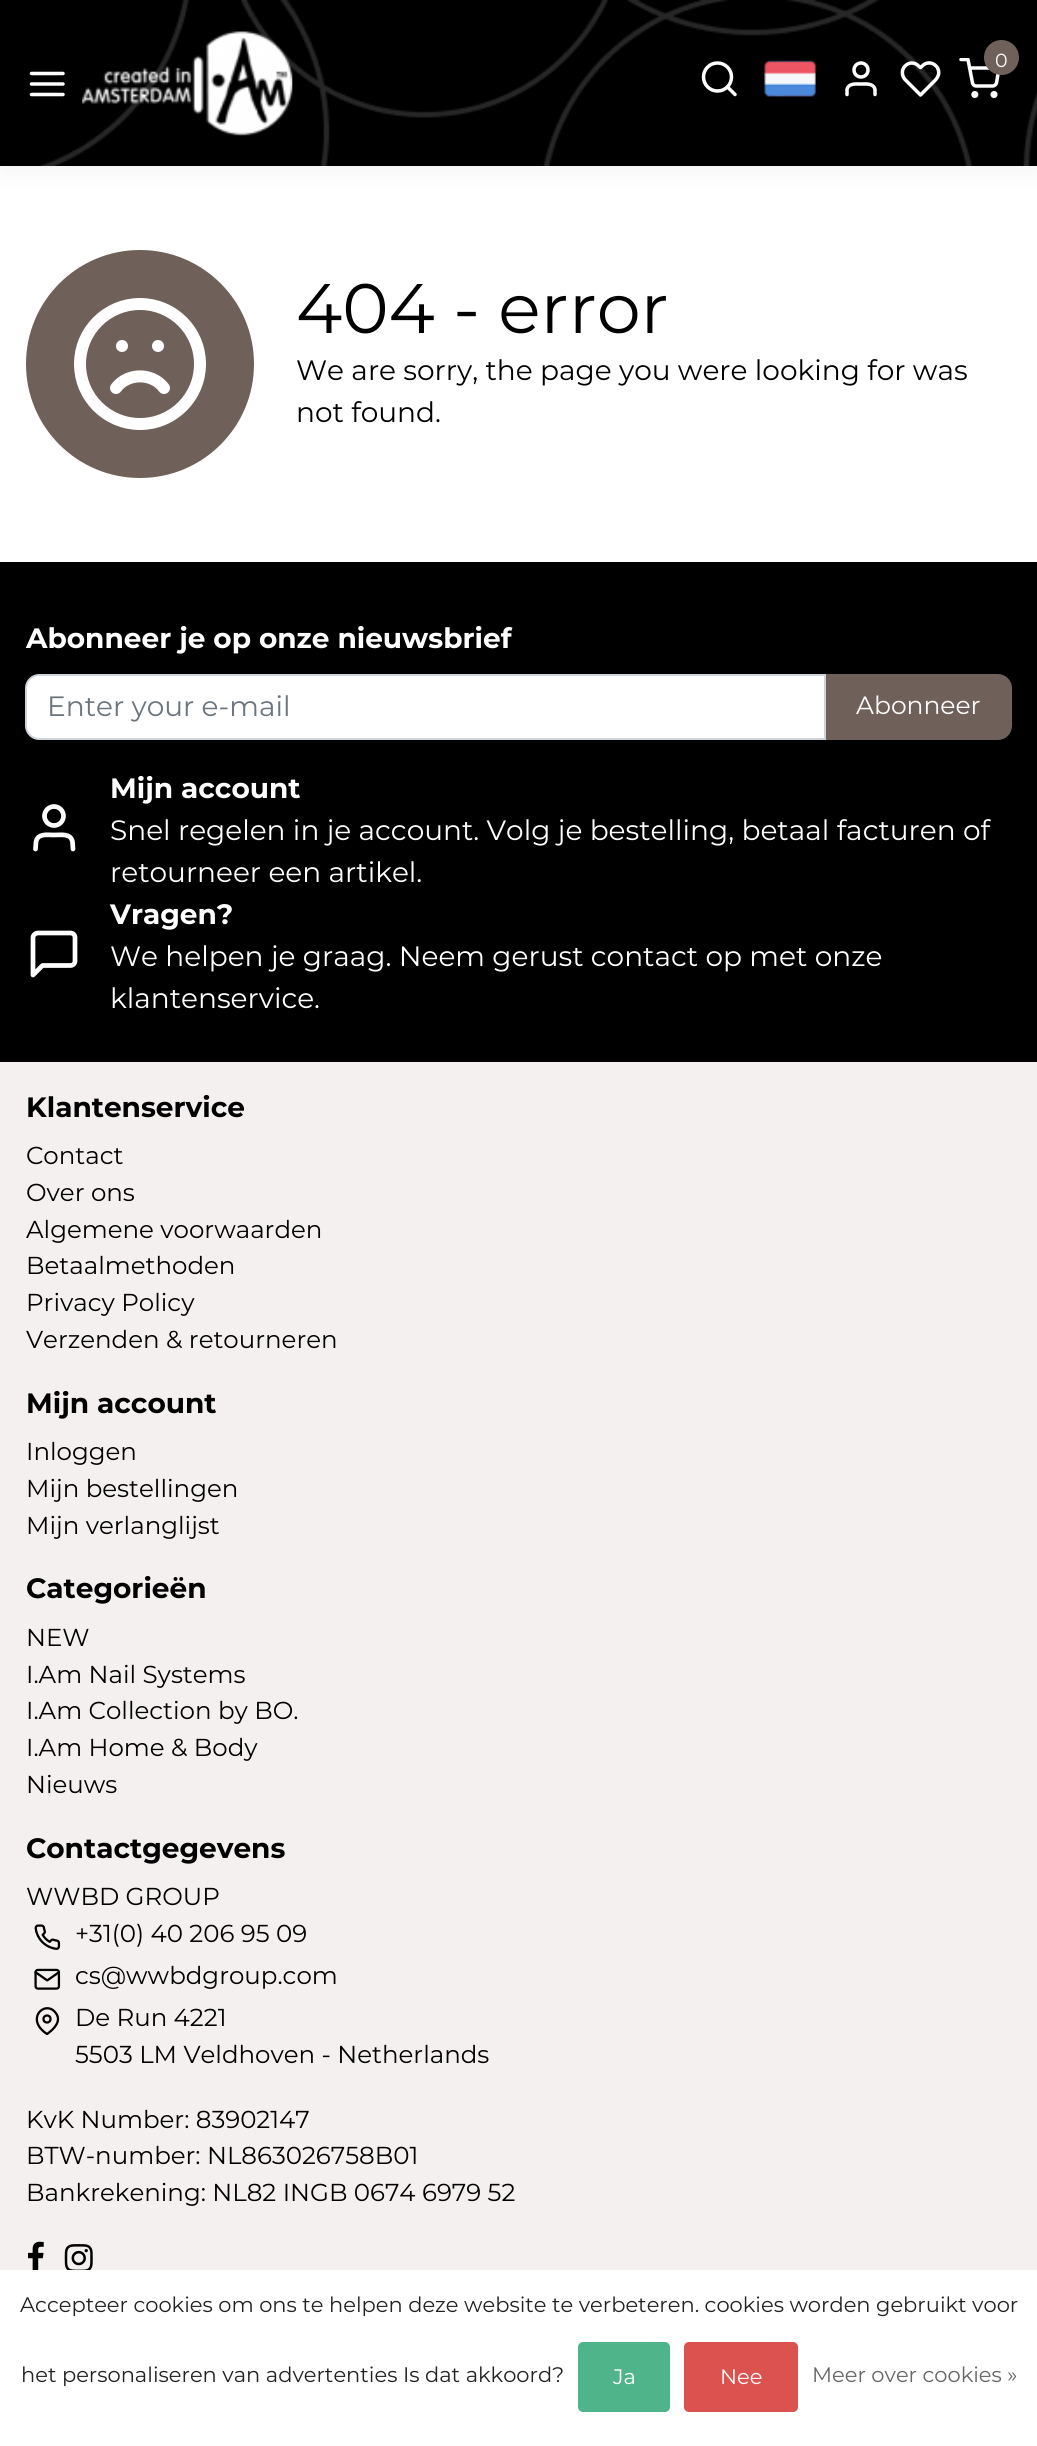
import math
import cairo

surface = cairo.ImageSurface(cairo.Format.RGB24, 1037, 2446)
ctx = cairo.Context(surface)
options = cairo.FontOptions()
options.set_hint_metrics(cairo.HintMetrics.OFF)
options.set_hint_style(cairo.HintStyle.NONE)
ctx.set_font_options(options)
ctx.set_miter_limit(4)


def ink(r, g, b):
    ctx.set_source_rgb(r / 255, g / 255, b / 255)


def write(x, y, s, family, size, color, bold=False, italic=False):
    ctx.select_font_face(family, cairo.FontSlant.ITALIC if italic else cairo.FontSlant.NORMAL, cairo.FontWeight.BOLD if bold else cairo.FontWeight.NORMAL)
    ctx.set_font_size(size)
    ink(*color)
    ctx.move_to(x, y)
    ctx.show_text(s)


def block(x, y, w, h, *color):
    ink(*color)
    ctx.rectangle(x, y, w, h)
    ctx.fill()


def round_path(x, y, w, h, r):
    ctx.new_sub_path()
    for i, (u, v) in enumerate([(x + w - r, y + h - r), (x + r, y + h - r), (x + r, y + r), (x + w - r, y + r)]):
        ctx.arc(u, v, r, i * math.pi / 2, (i + 1) * math.pi / 2)
    ctx.close_path()


def blur_box(x, y, w, h, r, blur, alpha):
    ctx.push_group_with_content(cairo.Content.ALPHA)
    ctx.set_operator(cairo.Operator.SOURCE)
    for i in range(15, -16, -2):
        e = blur * i / 6
        if min(w, h) + 2 * e > 0:
            ctx.set_source_rgba(0, 0, 0, alpha * math.erfc((i - 1) / 8.5) / 2)
            round_path(x - e, y - e, w + 2 * e, h + 2 * e, max(0, min(r + e + blur * .6, min(w, h) / 2 + e)))
            ctx.fill()
    ctx.mask(ctx.pop_group())


def paste(path, x, y, w, h):
    ctx.save()
    ctx.set_source_surface(cairo.ImageSurface.create_from_png(path), x, y)
    ctx.rectangle(x, y, w, h)
    ctx.fill()
    ctx.restore()


s1 = dict(family="Montserrat", size=19, color=(255, 255, 255))
s2 = dict(family="Montserrat", size=70, color=(0, 0, 0))
s3 = dict(family="Montserrat", size=28, color=(0, 0, 0))
s4 = dict(family="Montserrat", size=28, color=(255, 255, 255), bold=True)
s5 = dict(family="Montserrat", size=28, color=(108, 117, 125))
s6 = dict(family="Montserrat", size=25, color=(255, 255, 255))
s7 = dict(family="Montserrat", size=28, color=(255, 255, 255))
s8 = dict(family="Montserrat", size=28, color=(0, 0, 0), bold=True)
s9 = dict(family="Montserrat", size=24.5, color=(0, 0, 0))
s10 = dict(family="Montserrat", size=21, color=(34, 34, 34))
s11 = dict(family="Montserrat", size=21, color=(255, 255, 255))
s12 = dict(family="Montserrat", size=21, color=(102, 102, 102))

ink(255, 255, 255)
ctx.paint()
ink(0, 0, 0)
blur_box(0, 4, 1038, 166, 0, 14, 0.05)
block(0, 0, 1037, 166, 0, 0, 0)
paste("pic1.png", 40, 0, 997, 166)
ctx.new_path()
ctx.move_to(31.5, 84)
ctx.line_to(63, 84)
ctx.move_to(31.5, 73.5)
ctx.line_to(63, 73.5)
ctx.move_to(31.5, 94.5)
ctx.line_to(63, 94.5)
ink(255, 255, 255)
ctx.set_line_width(3.5)
ctx.set_line_cap(cairo.LineCap.ROUND)
ctx.set_line_join(cairo.LineJoin.ROUND)
ctx.stroke()
paste("pic2.png", 82, 31, 211, 105)
ctx.arc(717.5, 77, 14, 0, 2 * math.pi)
ctx.set_line_cap(cairo.LineCap.BUTT)
ctx.set_line_join(cairo.LineJoin.MITER)
ctx.stroke()
ctx.new_path()
ctx.move_to(735, 94.5)
ctx.line_to(727.5, 87)
ctx.set_line_cap(cairo.LineCap.ROUND)
ctx.set_line_join(cairo.LineJoin.ROUND)
ctx.stroke()
paste("pic3.png", 764, 60, 52, 37)
ctx.new_path()
ctx.move_to(875, 94.5)
ctx.line_to(875, 89.5)
ctx.curve_to(873.5, 83, 866, 84, 861, 84)
ctx.curve_to(856, 84, 848.5, 83, 847, 89.5)
ctx.line_to(847, 94.5)
ctx.stroke()
ctx.arc(861, 70, 7, 0, 2 * math.pi)
ctx.set_line_cap(cairo.LineCap.BUTT)
ctx.set_line_join(cairo.LineJoin.MITER)
ctx.stroke()
ctx.new_path()
ctx.move_to(936, 66)
ctx.curve_to(933, 62.5, 927.5, 62, 924, 64.5)
ctx.line_to(920.5, 67.5)
ctx.line_to(918.5, 66)
ctx.curve_to(915, 62, 909, 62, 905, 66)
ctx.curve_to(901.5, 69.5, 901.5, 75.5, 905, 79.5)
ctx.line_to(920.5, 95)
ctx.line_to(929.5, 86)
ctx.curve_to(933.5, 81.5, 940, 77.5, 938.5, 70.5)
ctx.curve_to(938, 69, 937.5, 67, 936, 66)
ctx.close_path()
ctx.set_line_cap(cairo.LineCap.ROUND)
ctx.set_line_join(cairo.LineJoin.ROUND)
ctx.stroke()
ctx.save()
ctx.rectangle(959, 58, 42, 42)
ctx.clip()
ctx.new_path()
ctx.move_to(961, 59.5)
ctx.line_to(968, 59.5)
ctx.line_to(972.5, 83)
ctx.curve_to(973, 84.5, 974, 86, 976, 86)
ctx.line_to(993, 86)
ctx.curve_to(994.5, 86, 996, 84.5, 996.5, 83)
ctx.line_to(999, 68)
ctx.line_to(969.5, 68)
ctx.stroke()
ctx.restore()
ink(111, 97, 90)
ctx.arc(1001.5, 57.5, 17.5, 0, 2 * math.pi)
ctx.fill()
write(995, 67, "0", **s1)
ctx.new_path()
ctx.arc(974.8, 94.5, 1.8, 0, 2 * math.pi)
ctx.set_line_cap(cairo.LineCap.BUTT)
ctx.set_line_join(cairo.LineJoin.MITER)
ctx.stroke()
ctx.arc(994, 94.5, 1.8, 0, 2 * math.pi)
ctx.stroke()
ink(111, 97, 90)
ctx.arc(140, 364, 114, 0, 2 * math.pi)
ctx.fill()
ctx.arc(140, 364, 60, 0, 2 * math.pi)
ink(255, 255, 255)
ctx.set_line_width(12)
ctx.stroke()
ctx.new_path()
ctx.move_to(164, 388)
ctx.curve_to(152.5, 372.5, 127.5, 372.5, 116, 388)
ctx.move_to(122, 346)
ctx.line_to(122, 346)
ctx.move_to(158, 346)
ctx.line_to(158, 346)
ctx.set_line_cap(cairo.LineCap.ROUND)
ctx.set_line_join(cairo.LineJoin.ROUND)
ctx.stroke()
write(296, 333, "404 - error", **s2)
write(296, 380, "We are sorry, the page you were looking for was", **s3)
write(296, 422, "not found.", **s3)
block(0, 562, 1037, 500, 0, 0, 0)
write(26, 648, "Abonneer je op onze nieuwsbrief", **s4)
ctx.new_path()
ctx.move_to(39, 675)
ctx.line_to(825, 675)
ctx.line_to(825, 739)
ctx.line_to(39, 739)
ctx.curve_to(32, 739, 26, 733, 26, 726)
ctx.line_to(26, 688)
ctx.curve_to(26, 681, 32, 675, 39, 675)
ctx.close_path()
ctx.fill_preserve()
ink(206, 212, 218)
ctx.set_line_width(2)
ctx.set_line_cap(cairo.LineCap.BUTT)
ctx.set_line_join(cairo.LineJoin.MITER)
ctx.stroke()
write(47, 716, "Enter your e-mail", **s5)
ink(111, 97, 90)
ctx.new_path()
ctx.move_to(827, 675)
ctx.line_to(998, 675)
ctx.curve_to(1005, 675, 1011, 681, 1011, 688)
ctx.line_to(1011, 726)
ctx.curve_to(1011, 733, 1005, 739, 998, 739)
ctx.line_to(827, 739)
ctx.close_path()
ctx.fill_preserve()
ctx.stroke()
write(856, 714, "Abonneer", **s6)
ctx.new_path()
ctx.move_to(73, 849)
ctx.line_to(72.5, 842)
ctx.curve_to(71, 833, 61, 835, 54, 835)
ctx.curve_to(47.5, 835, 37.5, 833, 36, 842)
ctx.line_to(35.5, 849)
ctx.set_line_width(4.7)
ctx.set_line_cap(cairo.LineCap.ROUND)
ctx.set_line_join(cairo.LineJoin.ROUND)
ctx.stroke()
ctx.arc(54, 816, 9.5, 0, 2 * math.pi)
ctx.set_line_cap(cairo.LineCap.BUTT)
ctx.set_line_join(cairo.LineJoin.MITER)
ctx.stroke()
write(110, 798, "Mijn account", **s4)
write(110, 840, "Snel regelen in je account. Volg je bestelling, betaal facturen of", **s7)
write(110, 882, "retourneer een artikel.", **s7)
ctx.new_path()
ctx.move_to(75, 961)
ctx.curve_to(75, 963.5, 73, 965.5, 70.5, 965.5)
ctx.line_to(42.5, 965.5)
ctx.line_to(33, 975)
ctx.line_to(33, 937.5)
ctx.curve_to(33, 935, 35.5, 933, 38, 933)
ctx.line_to(70.5, 933)
ctx.curve_to(73, 933, 75, 935, 75, 937.5)
ctx.close_path()
ctx.set_line_cap(cairo.LineCap.ROUND)
ctx.set_line_join(cairo.LineJoin.ROUND)
ctx.stroke()
write(110, 924, "Vragen?", **s4)
write(110, 966, "We helpen je graag. Neem gerust contact op met onze", **s7)
write(110, 1008, "klantenservice.", **s7)
block(0, 1062, 1037, 1208, 244, 240, 240)
write(26, 1117, "Klantenservice", **s8)
write(26, 1164, "Contact", **s9)
write(26, 1201, "Over ons", **s9)
write(26, 1238, "Algemene voorwaarden", **s9)
write(26, 1274, "Betaalmethoden", **s9)
write(26, 1311, "Privacy Policy", **s9)
write(26, 1348, "Verzenden & retourneren", **s9)
write(26, 1413, "Mijn account", **s8)
write(26, 1460, "Inloggen", **s9)
write(26, 1497, "Mijn bestellingen", **s9)
write(26, 1534, "Mijn verlanglijst", **s9)
write(26, 1598, "Categorieën", **s8)
write(26, 1646, "NEW", **s9)
write(26, 1683, "I.Am Nail Systems", **s9)
write(26, 1719, "I.Am Collection by BO.", **s9)
write(26, 1756, "I.Am Home & Body", **s9)
write(26, 1793, "Nieuws", **s9)
write(26, 1858, "Contactgegevens", **s8)
write(26, 1905, "WWBD GROUP", **s9)
paste("pic4.png", 34, 1924, 27, 26)
write(75, 1942, "+31(0) 40 206 95 09", **s9)
paste("pic5.png", 34, 1968, 27, 22)
write(75, 1984, "cs@wwbdgroup.com", **s9)
ctx.new_path()
ctx.move_to(58, 2019)
ctx.curve_to(58, 2027, 47, 2034, 47, 2034)
ctx.curve_to(25, 2019.5, 44, 2000.5, 54.5, 2011.5)
ctx.curve_to(56.5, 2013.5, 58, 2016, 58, 2019)
ctx.close_path()
ctx.set_line_width(2.3)
ctx.stroke()
ctx.arc(47, 2019, 3.5, 0, 2 * math.pi)
ctx.set_line_cap(cairo.LineCap.BUTT)
ctx.set_line_join(cairo.LineJoin.MITER)
ctx.stroke()
write(75, 2026, "De Run 4221", **s9)
write(75, 2063, "5503 LM Veldhoven - Netherlands", **s9)
write(26, 2128, "KvK Number: 83902147", **s9)
write(26, 2164, "BTW-number: NL863026758B01", **s9)
write(26, 2201, "Bankrekening: NL82 INGB 0674 6979 52", **s9)
paste("pic6.png", 28, 2241, 16, 29)
paste("pic7.png", 64, 2244, 29, 26)
write(20, 2312, "Accepteer cookies om ons te helpen deze website te verbeteren. cookies worden gebruikt voor", **s10)
write(21, 2382, "het personaliseren van advertenties Is dat akkoord?", **s10)
ink(80, 180, 138)
round_path(578, 2342, 92, 70, 5)
ctx.fill()
write(613, 2384, "Ja", **s11)
ink(219, 82, 78)
round_path(684, 2342, 114, 70, 5)
ctx.fill()
write(720, 2384, "Nee", **s11)
write(812, 2382, "Meer over cookies »", **s12)
surface.write_to_png("screenshot.png")
